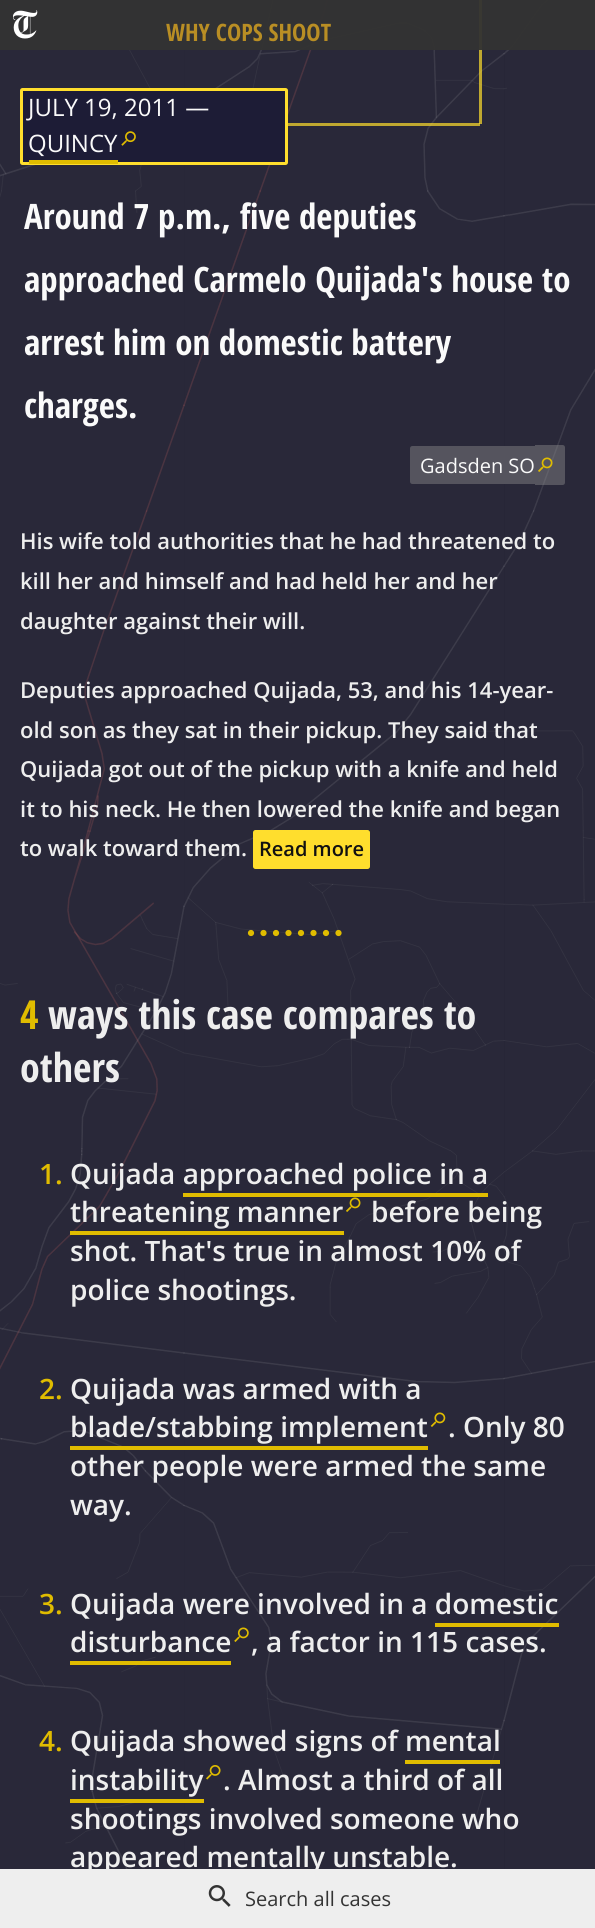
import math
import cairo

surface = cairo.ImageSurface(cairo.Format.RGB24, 595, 1928)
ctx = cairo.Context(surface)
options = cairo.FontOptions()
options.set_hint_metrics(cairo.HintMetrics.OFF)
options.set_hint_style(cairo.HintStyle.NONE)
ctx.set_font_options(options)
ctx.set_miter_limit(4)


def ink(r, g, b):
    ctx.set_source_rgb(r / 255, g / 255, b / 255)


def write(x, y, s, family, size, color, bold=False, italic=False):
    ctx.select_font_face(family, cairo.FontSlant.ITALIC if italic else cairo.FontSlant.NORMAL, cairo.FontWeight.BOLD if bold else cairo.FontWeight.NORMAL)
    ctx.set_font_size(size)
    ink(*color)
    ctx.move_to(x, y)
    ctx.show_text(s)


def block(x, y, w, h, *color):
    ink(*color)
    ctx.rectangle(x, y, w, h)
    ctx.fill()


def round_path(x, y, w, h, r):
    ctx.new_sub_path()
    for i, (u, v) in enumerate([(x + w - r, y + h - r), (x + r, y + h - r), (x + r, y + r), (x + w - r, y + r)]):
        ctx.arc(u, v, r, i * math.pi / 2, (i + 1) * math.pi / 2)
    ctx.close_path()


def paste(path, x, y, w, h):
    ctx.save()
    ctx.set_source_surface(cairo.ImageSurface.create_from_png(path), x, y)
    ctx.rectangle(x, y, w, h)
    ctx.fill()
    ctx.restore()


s1 = dict(family="Open Sans Condensed", size=24, color=(185, 142, 36), bold=True)
s2 = dict(family="Open Sans", size=24, color=(250, 250, 250))
s3 = dict(family="Open Sans Condensed", size=35, color=(250, 250, 250), bold=True)
s4 = dict(family="Open Sans", size=20, color=(250, 250, 250))
s5 = dict(family="Open Sans SemiBold", size=22, color=(238, 238, 238))
s6 = dict(family="Open Sans SemiBold", size=20, color=(17, 17, 17))
s7 = dict(family="Open Sans Condensed", size=40, color=(224, 188, 0), bold=True)
s8 = dict(family="Open Sans Condensed", size=40, color=(238, 238, 238), bold=True)
s9 = dict(family="Open Sans SemiBold", size=28, color=(224, 188, 0))
s10 = dict(family="Open Sans SemiBold", size=28, color=(238, 238, 238))
s11 = dict(family="Open Sans", size=20, color=(51, 51, 51))

ink(20, 19, 37)
ctx.paint()
paste("pic1.png", 0, 0, 595, 1869)
ctx.set_source_rgba(1, 0.871, 0.176, 0.7)
ctx.rectangle(479, 0, 3, 124)
ctx.fill()
ctx.set_source_rgba(0.2, 0.2, 0.2, 0.95)
ctx.rectangle(0, 0, 595, 50)
ctx.fill()
paste("pic2.png", 13, 10, 25, 29)
write(166, 41, "WHY COPS SHOOT", **s1)
ink(29, 28, 54)
round_path(21.5, 89.5, 265, 74, 1)
ctx.fill_preserve()
ink(255, 222, 45)
ctx.set_line_width(3)
ctx.stroke()
write(28, 116, "JULY 19, 2011 —", **s2)
write(28, 152, "QUINCY", **s2)
block(29, 160, 89, 4, 224, 188, 0)
paste("pic3.png", 121, 131, 15, 15)
ctx.set_source_rgba(1, 0.871, 0.176, 0.7)
ctx.rectangle(288, 123, 192, 3)
ctx.fill()
write(24, 229, "Around 7 p.m., five deputies", **s3)
write(24, 292, "approached Carmelo Quijada's house to", **s3)
write(24, 355, "arrest him on domestic battery", **s3)
write(24, 418, "charges.", **s3)
ink(85, 84, 94)
ctx.new_path()
ctx.move_to(412.5, 446)
ctx.line_to(509, 446)
ctx.line_to(509, 484)
ctx.line_to(412.5, 484)
ctx.curve_to(411, 484, 410, 483, 410, 481.5)
ctx.line_to(410, 448.5)
ctx.curve_to(410, 447, 411, 446, 412.5, 446)
ctx.close_path()
ctx.fill()
block(509, 446, 26, 38, 85, 84, 94)
write(420, 473, "Gadsden SO", **s4)
ctx.set_source_rgba(0.588, 0.588, 0.588, 0.4)
ctx.new_path()
ctx.move_to(535, 445)
ctx.line_to(562.5, 445)
ctx.curve_to(564, 445, 565, 446, 565, 447.5)
ctx.line_to(565, 482.5)
ctx.curve_to(565, 484, 564, 485, 562.5, 485)
ctx.line_to(535, 485)
ctx.close_path()
ctx.fill()
paste("pic4.png", 538, 457, 15, 15)
write(20, 549, "His wife told authorities that he had threatened to", **s5)
write(20, 589, "kill her and himself and had held her and her", **s5)
write(20, 629, "daughter against their will.", **s5)
write(20, 698, "Deputies approached Quijada, 53, and his 14-year-", **s5)
write(20, 738, "old son as they sat in their pickup. They said that", **s5)
write(20, 777, "Quijada got out of the pickup with a knife and held", **s5)
write(20, 817, "it to his neck. He then lowered the knife and began", **s5)
write(20, 856, "to walk toward them.", **s5)
ink(255, 222, 45)
round_path(253, 830, 117, 39, 2.5)
ctx.fill()
write(259, 856, "Read more", **s6)
ctx.new_path()
ctx.move_to(251, 933)
ctx.line_to(345, 933)
ink(224, 188, 0)
ctx.set_line_width(6.2)
ctx.set_line_cap(cairo.LineCap.ROUND)
ctx.set_dash([0, 12.5])
ctx.stroke()
write(20, 1029, "4", **s7)
write(48, 1029, "ways this case compares to", **s8)
write(20, 1082, "others", **s8)
write(39, 1184, "1.", **s9)
write(70, 1184, "Quijada approached police in a", **s10)
block(183, 1193, 305, 4, 224, 188, 0)
write(70, 1222, "threatening manner", **s10)
paste("pic5.png", 346, 1197, 15, 15)
write(371, 1222, "before being", **s10)
write(70, 1261, "shot. That's true in almost 10% of", **s10)
block(70, 1231, 274, 4, 224, 188, 0)
write(70, 1300, "police shootings.", **s10)
write(39, 1399, "2.", **s9)
write(70, 1399, "Quijada was armed with a", **s10)
write(70, 1437, "blade/stabbing implement", **s10)
block(70, 1446, 358, 4, 224, 188, 0)
paste("pic6.png", 430, 1412, 16, 15)
write(448, 1437, ". Only 80", **s10)
write(70, 1476, "other people were armed the same", **s10)
write(70, 1515, "way.", **s10)
write(39, 1614, "3.", **s9)
write(70, 1614, "Quijada were involved in a domestic", **s10)
write(70, 1652, "disturbance", **s10)
block(70, 1661, 161, 4, 224, 188, 0)
paste("pic7.png", 234, 1627, 15, 15)
write(251, 1652, ", a factor in 115 cases.", **s10)
block(435, 1623, 124, 4, 224, 188, 0)
write(39, 1751, "4.", **s9)
write(70, 1751, "Quijada showed signs of mental", **s10)
write(70, 1790, "instability", **s10)
block(70, 1799, 134, 4, 224, 188, 0)
paste("pic8.png", 206, 1765, 15, 15)
write(223, 1790, ". Almost a third of all", **s10)
block(405, 1760, 95, 4, 224, 188, 0)
write(70, 1829, "shootings involved someone who", **s10)
write(70, 1867, "appeared mentally unstable.", **s10)
block(0, 1869, 595, 59, 238, 238, 238)
paste("pic9.png", 208, 1885, 23, 22)
write(245, 1906, "Search all cases", **s11)
surface.write_to_png("screenshot.png")
